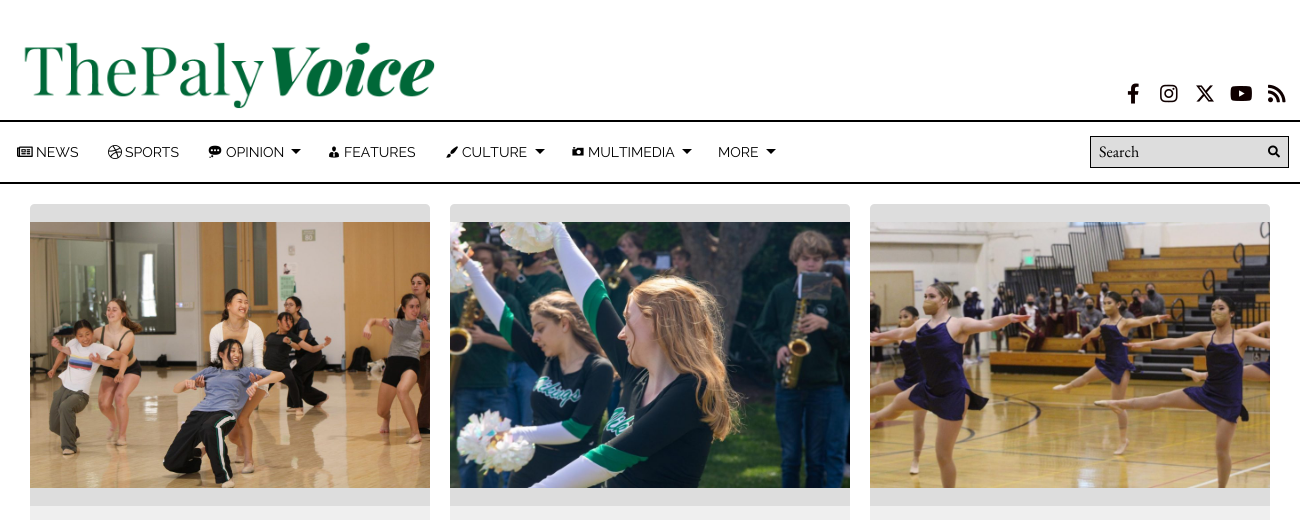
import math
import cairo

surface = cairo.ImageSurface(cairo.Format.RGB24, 1300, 520)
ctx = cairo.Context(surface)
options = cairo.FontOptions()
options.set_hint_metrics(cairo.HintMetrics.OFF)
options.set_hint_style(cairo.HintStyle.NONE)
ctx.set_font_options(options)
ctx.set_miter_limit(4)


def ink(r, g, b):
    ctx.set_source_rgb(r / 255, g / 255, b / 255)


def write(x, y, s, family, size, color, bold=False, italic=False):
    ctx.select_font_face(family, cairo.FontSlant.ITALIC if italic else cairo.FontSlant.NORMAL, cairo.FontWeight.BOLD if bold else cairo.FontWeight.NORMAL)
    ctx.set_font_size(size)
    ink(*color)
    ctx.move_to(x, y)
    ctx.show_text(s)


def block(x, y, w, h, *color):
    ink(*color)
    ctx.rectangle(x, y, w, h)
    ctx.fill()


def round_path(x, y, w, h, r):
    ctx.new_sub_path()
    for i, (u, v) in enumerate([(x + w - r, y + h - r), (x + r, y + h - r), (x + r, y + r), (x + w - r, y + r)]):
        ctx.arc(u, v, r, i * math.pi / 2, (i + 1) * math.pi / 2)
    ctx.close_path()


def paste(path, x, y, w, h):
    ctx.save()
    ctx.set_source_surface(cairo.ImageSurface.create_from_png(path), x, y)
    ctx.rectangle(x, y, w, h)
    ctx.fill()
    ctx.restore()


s1 = dict(family="Raleway", size=14, color=(0, 0, 0))
s2 = dict(family="EB Garamond", size=16, color=(0, 0, 0))

ink(255, 255, 255)
ctx.paint()
block(0, 120, 1300, 2, 0, 0, 0)
paste("pic1.png", 24, 42, 411, 67)
paste("pic2.png", 1127, 83, 12, 21)
paste("pic3.png", 1160, 84, 18, 19)
paste("pic4.png", 1196, 85, 18, 17)
paste("pic5.png", 1230, 86, 22, 15)
paste("pic6.png", 1268, 84, 18, 19)
block(0, 182, 1300, 2, 0, 0, 0)
paste("pic7.png", 17, 146, 16, 11)
write(36, 157, "NEWS", **s1)
paste("pic8.png", 108, 145, 14, 14)
write(125, 157, "SPORTS", **s1)
paste("pic9.png", 208, 145, 14, 13)
write(226, 157, "OPINION", **s1)
ctx.new_path()
ctx.move_to(291, 149)
ctx.line_to(301, 149)
ctx.line_to(296, 154)
ctx.close_path()
ctx.fill()
paste("pic10.png", 329, 146, 10, 12)
write(344, 157, "FEATURES", **s1)
paste("pic11.png", 446, 146, 12, 12)
write(462, 157, "CULTURE", **s1)
ctx.new_path()
ctx.move_to(535, 149)
ctx.line_to(545, 149)
ctx.line_to(540, 154)
ctx.close_path()
ctx.fill()
paste("pic12.png", 572, 147, 12, 9)
write(588, 157, "MULTIMEDIA", **s1)
ctx.new_path()
ctx.move_to(682, 149)
ctx.line_to(692, 149)
ctx.line_to(687, 154)
ctx.close_path()
ctx.fill()
write(718, 157, "MORE", **s1)
ctx.new_path()
ctx.move_to(766, 149)
ctx.line_to(776, 149)
ctx.line_to(771, 154)
ctx.close_path()
ctx.fill()
ink(221, 221, 221)
ctx.rectangle(1090.5, 136.5, 198, 31)
ctx.fill_preserve()
ink(0, 0, 0)
ctx.set_line_width(1)
ctx.stroke()
write(1099, 157, "Search", **s2)
paste("pic13.png", 1268, 145, 12, 13)
ink(239, 239, 239)
round_path(30, 204, 400, 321, 5)
ctx.fill()
ink(221, 221, 221)
ctx.new_path()
ctx.move_to(35, 204)
ctx.line_to(425, 204)
ctx.curve_to(428, 204, 430, 206, 430, 209)
ctx.line_to(430, 506)
ctx.line_to(30, 506)
ctx.line_to(30, 209)
ctx.curve_to(30, 206, 32, 204, 35, 204)
ctx.close_path()
ctx.fill()
paste("pic14.png", 30, 222, 400, 266)
ink(239, 239, 239)
round_path(450, 204, 400, 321, 5)
ctx.fill()
ink(221, 221, 221)
ctx.new_path()
ctx.move_to(455, 204)
ctx.line_to(845, 204)
ctx.curve_to(848, 204, 850, 206, 850, 209)
ctx.line_to(850, 506)
ctx.line_to(450, 506)
ctx.line_to(450, 209)
ctx.curve_to(450, 206, 452, 204, 455, 204)
ctx.close_path()
ctx.fill()
paste("pic15.png", 450, 222, 400, 266)
ink(239, 239, 239)
round_path(870, 204, 400, 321, 5)
ctx.fill()
ink(221, 221, 221)
ctx.new_path()
ctx.move_to(875, 204)
ctx.line_to(1265, 204)
ctx.curve_to(1268, 204, 1270, 206, 1270, 209)
ctx.line_to(1270, 506)
ctx.line_to(870, 506)
ctx.line_to(870, 209)
ctx.curve_to(870, 206, 872, 204, 875, 204)
ctx.close_path()
ctx.fill()
paste("pic16.png", 870, 222, 400, 266)
surface.write_to_png("screenshot.png")
